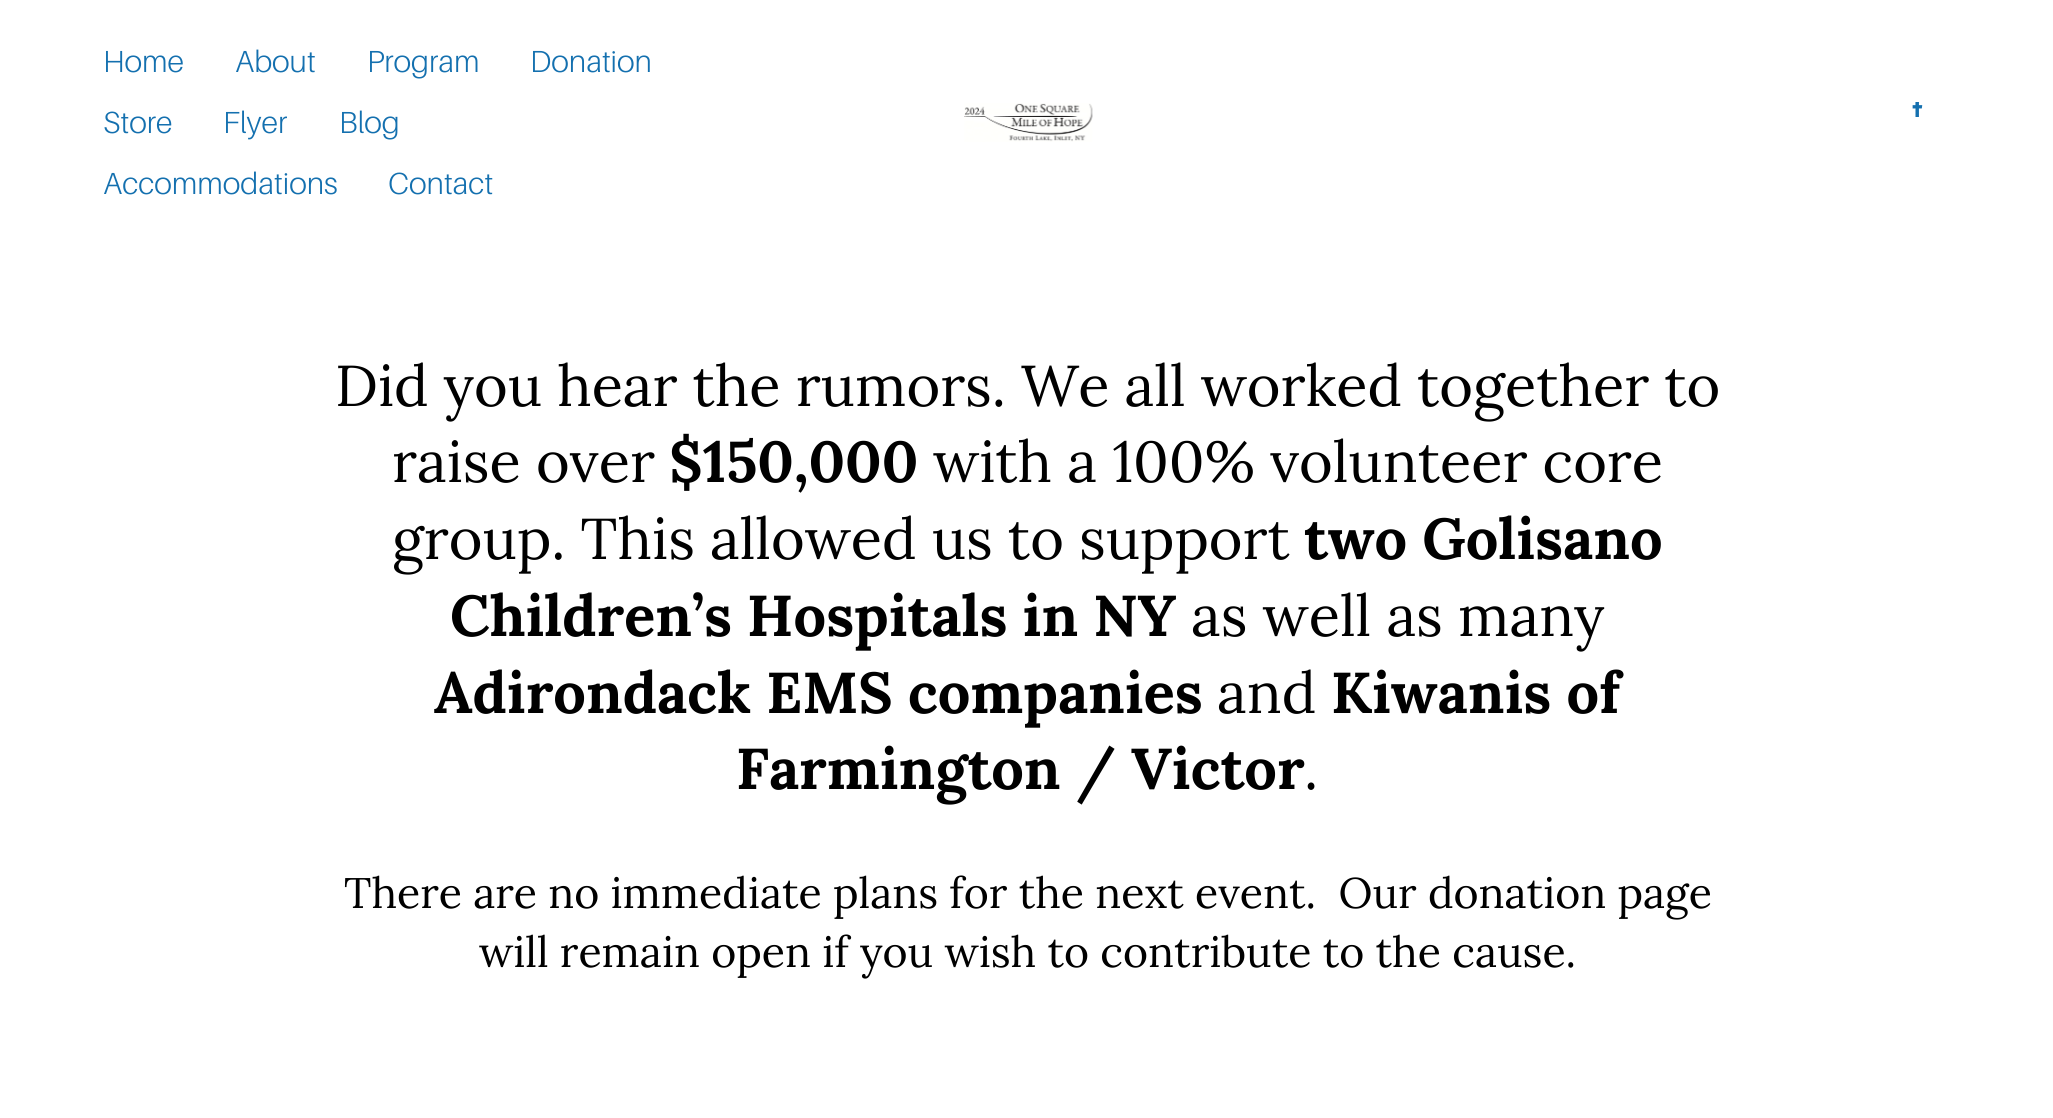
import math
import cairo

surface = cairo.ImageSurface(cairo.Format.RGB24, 2053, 1118)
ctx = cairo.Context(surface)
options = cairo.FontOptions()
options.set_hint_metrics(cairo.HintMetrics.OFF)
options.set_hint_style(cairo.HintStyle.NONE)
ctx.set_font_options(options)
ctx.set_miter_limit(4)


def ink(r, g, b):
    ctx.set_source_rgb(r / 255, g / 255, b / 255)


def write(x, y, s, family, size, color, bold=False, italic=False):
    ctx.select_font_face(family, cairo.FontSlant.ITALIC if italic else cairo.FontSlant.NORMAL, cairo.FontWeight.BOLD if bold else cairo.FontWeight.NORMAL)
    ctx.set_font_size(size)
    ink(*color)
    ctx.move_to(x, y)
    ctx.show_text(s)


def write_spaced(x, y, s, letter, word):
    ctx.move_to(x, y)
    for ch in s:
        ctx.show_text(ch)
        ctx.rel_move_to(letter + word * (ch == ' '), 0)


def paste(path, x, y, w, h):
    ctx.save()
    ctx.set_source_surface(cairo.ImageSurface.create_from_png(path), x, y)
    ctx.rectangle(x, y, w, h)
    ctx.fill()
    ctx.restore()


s1 = dict(family="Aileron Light", size=30.5, color=(20, 112, 175))
s2 = dict(family="Lora", size=57.6, color=(0, 0, 0))
s3 = dict(family="Lora", size=57.6, color=(0, 0, 0), bold=True)
s4 = dict(family="Lora", size=42.8, color=(0, 0, 0))

ink(255, 255, 255)
ctx.paint()
write(103, 72, "Home", **s1)
write(235, 72, "About", **s1)
write(367, 72, "Program", **s1)
write(530, 72, "Donation", **s1)
write(103, 133, "Store", **s1)
write(223, 133, "Flyer", **s1)
write(339, 133, "Blog", **s1)
write(103, 194, "Accommodations", **s1)
write(388, 194, "Contact", **s1)
paste("pic1.png", 964, 103, 129, 39)
paste("pic2.png", 1912, 102, 11, 15)
ctx.select_font_face("Lora")
ctx.set_font_size(57.6)
ink(0, 0, 0)
write_spaced(335, 406, "Did you hear the rumors. We all worked together to", 0, -0.1)
write(392, 482, "raise over", **s2)
write(669, 482, "$150,000", **s3)
write(933, 482, "with a 100% volunteer core", **s2)
write(392, 559, "group. This allowed us to support", **s2)
write(1304, 559, "two Golisano", **s3)
write(450, 636, "Children’s Hospitals in NY", **s3)
write(1191, 636, "as well as many", **s2)
write(434, 713, "Adirondack EMS companies", **s3)
write(1217, 713, "and", **s2)
write(1331, 713, "Kiwanis of", **s3)
write(736, 789, "Farmington / Victor", **s3)
write(1304, 789, ".", **s2)
write(344, 908, "There are no immediate plans for the next event.  Our donation page", **s4)
write(479, 967, "will remain open if you wish to contribute to the cause.", **s4)
surface.write_to_png("screenshot.png")
